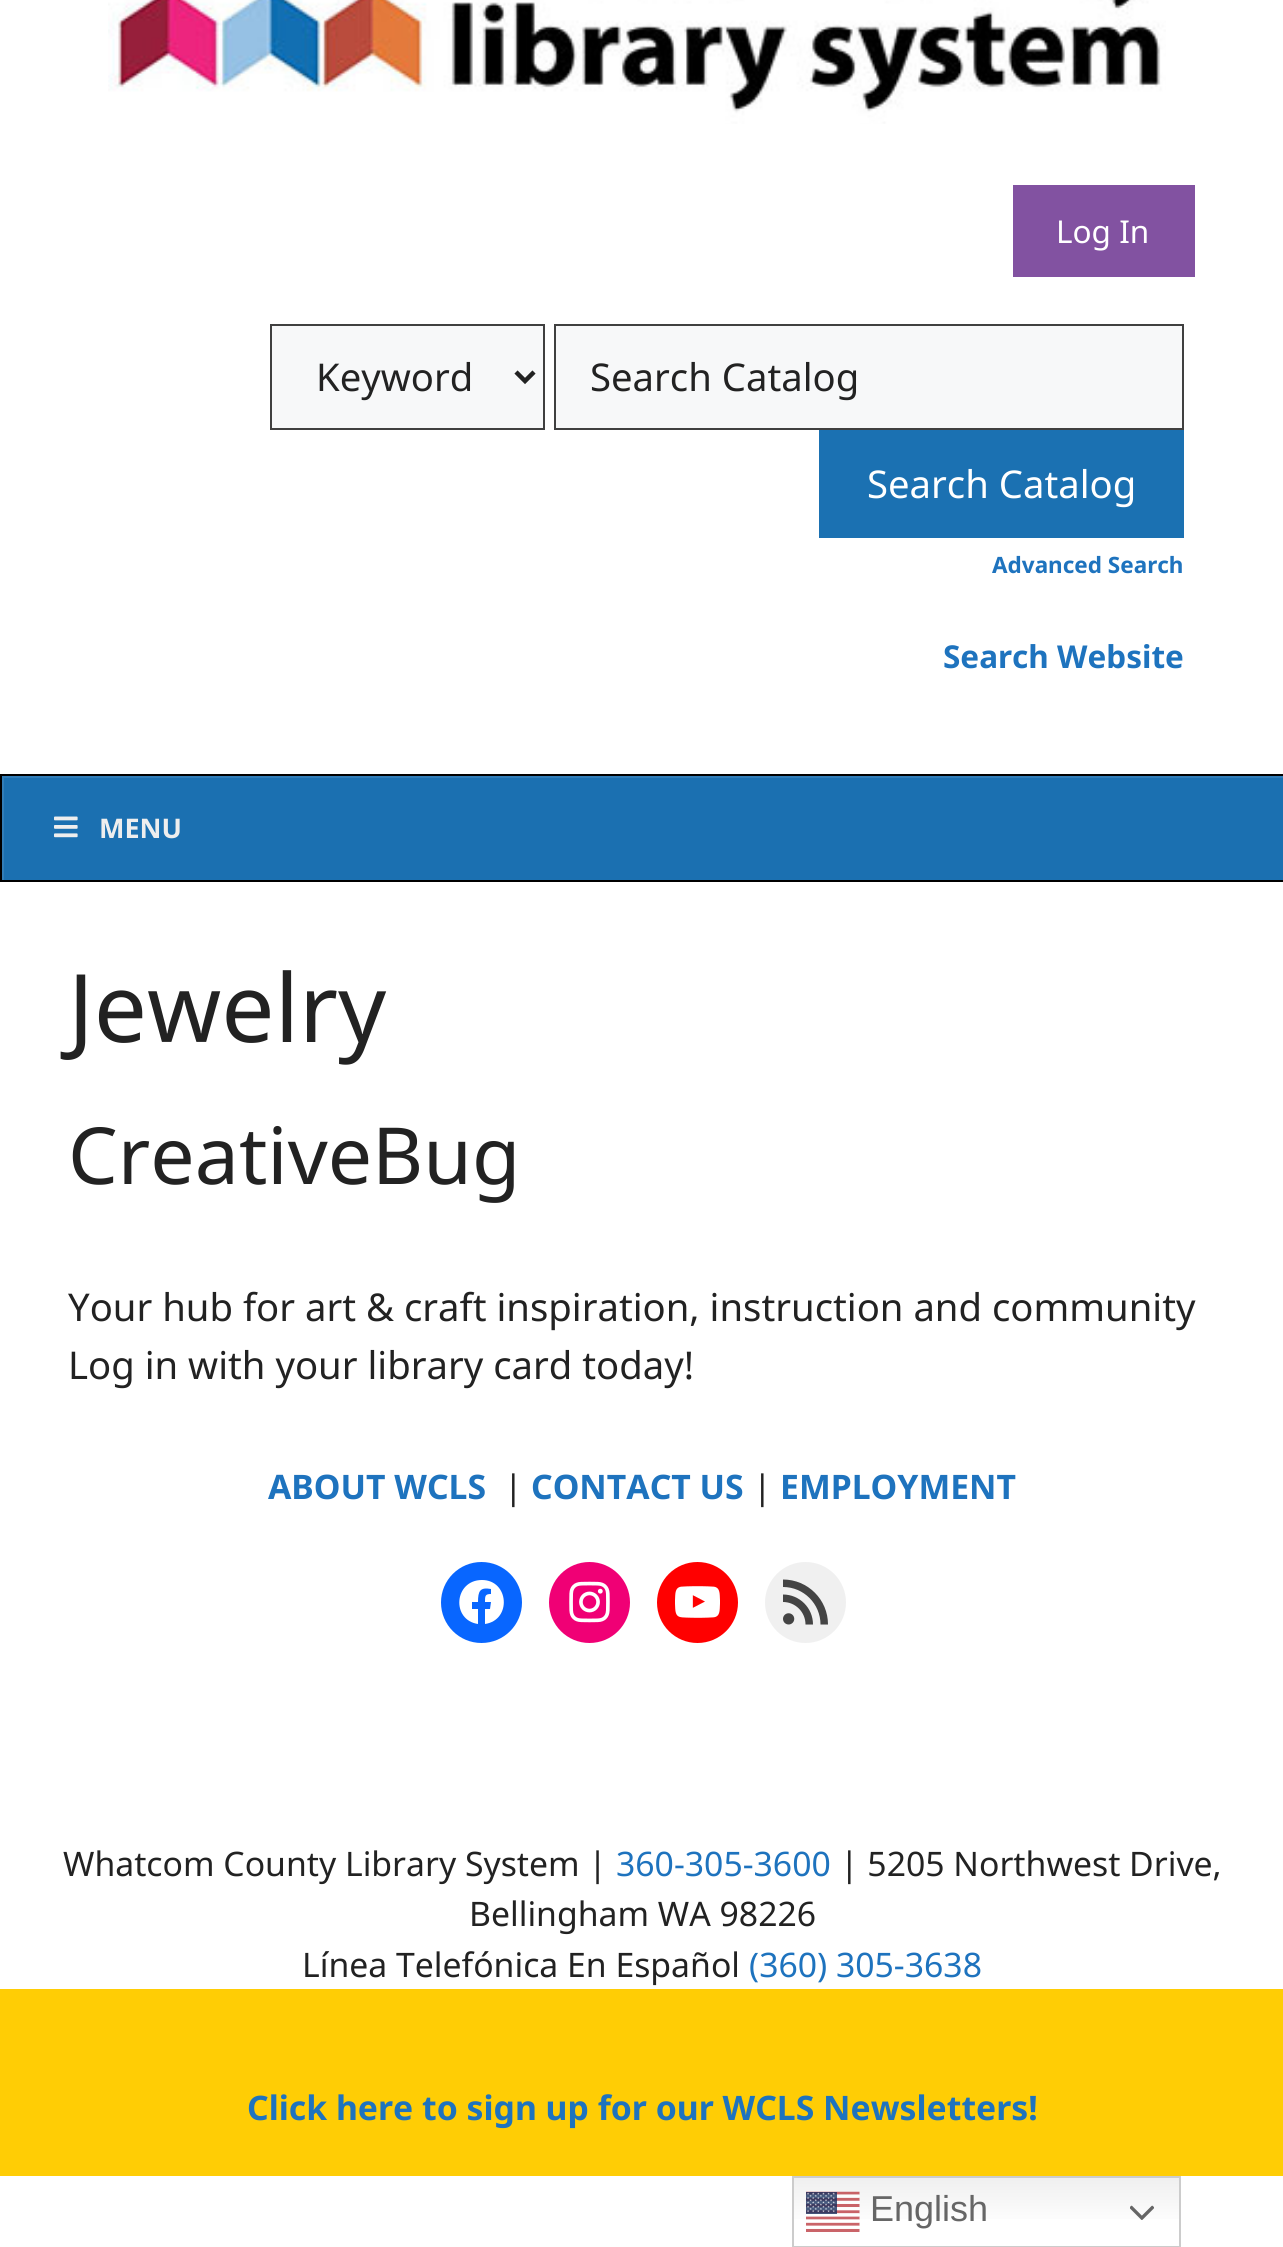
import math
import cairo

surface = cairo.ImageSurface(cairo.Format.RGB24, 1283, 2247)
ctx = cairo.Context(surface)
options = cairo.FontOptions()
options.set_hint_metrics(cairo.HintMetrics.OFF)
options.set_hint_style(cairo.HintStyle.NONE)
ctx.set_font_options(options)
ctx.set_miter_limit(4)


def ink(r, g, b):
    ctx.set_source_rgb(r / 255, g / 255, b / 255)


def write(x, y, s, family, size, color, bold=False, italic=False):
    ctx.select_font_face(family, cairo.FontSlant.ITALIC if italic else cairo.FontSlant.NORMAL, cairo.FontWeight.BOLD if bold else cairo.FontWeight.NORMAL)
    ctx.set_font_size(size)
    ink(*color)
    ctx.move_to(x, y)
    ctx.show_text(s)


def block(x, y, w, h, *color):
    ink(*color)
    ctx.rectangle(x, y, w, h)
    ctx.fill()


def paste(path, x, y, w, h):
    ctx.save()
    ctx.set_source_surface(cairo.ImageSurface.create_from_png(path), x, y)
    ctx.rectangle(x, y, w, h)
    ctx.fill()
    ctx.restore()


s1 = dict(family="Noto Sans", size=31.5, color=(255, 255, 255))
s2 = dict(family="Noto Sans", size=38.25, color=(34, 34, 34))
s3 = dict(family="Noto Sans", size=38.25, color=(255, 255, 255))
s4 = dict(family="Noto Sans", size=22.5, color=(30, 115, 190), bold=True)
s5 = dict(family="Noto Sans", size=31.5, color=(30, 115, 190), bold=True)
s6 = dict(family="Noto Sans", size=27, color=(238, 238, 238), bold=True)
s7 = dict(family="Noto Sans", size=94.5, color=(34, 34, 34))
s8 = dict(family="Noto Sans", size=78.75, color=(34, 34, 34))
s9 = dict(family="Noto Sans", size=33.75, color=(30, 115, 190), bold=True)
s10 = dict(family="Noto Sans", size=33.75, color=(34, 34, 34))
s11 = dict(family="Noto Sans", size=33.75, color=(30, 115, 190))
s12 = dict(family="Liberation Sans", size=36, color=(102, 102, 102))

ink(255, 255, 255)
ctx.paint()
paste("pic1.png", 108, 0, 1058, 124)
block(1013, 185, 182, 92, 130, 82, 161)
write(1056, 243, "Log In", **s1)
ink(247, 248, 249)
ctx.rectangle(271, 325, 273, 104)
ctx.fill_preserve()
ink(64, 64, 64)
ctx.stroke()
ctx.new_path()
ctx.move_to(516, 372)
ctx.line_to(525, 381)
ctx.line_to(534, 372)
ink(34, 34, 34)
ctx.set_line_width(4.5)
ctx.stroke()
write(316, 391, "Keyword", **s2)
ink(247, 248, 249)
ctx.rectangle(555, 325, 628, 104)
ctx.fill_preserve()
ink(64, 64, 64)
ctx.set_line_width(2)
ctx.stroke()
write(590, 391, "Search Catalog", **s2)
block(819, 430, 365, 108, 27, 113, 178)
write(867, 498, "Search Catalog", **s3)
write(992, 573, "Advanced Search", **s4)
write(943, 668, "Search Website", **s5)
block(4, 778, 1279, 102, 27, 112, 177)
ctx.save()
ctx.rectangle(2, 776, 1281, 104)
ctx.clip()
ink(50, 126, 185)
ctx.set_fill_rule(cairo.FillRule.EVEN_ODD)
ctx.new_path()
ctx.move_to(-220, 554)
ctx.line_to(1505, 554)
ctx.line_to(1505, 1102)
ctx.line_to(-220, 1102)
ctx.close_path()
ctx.move_to(4, 778)
ctx.line_to(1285, 778)
ctx.line_to(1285, 882)
ctx.line_to(4, 882)
ctx.close_path()
ctx.fill()
ctx.restore()
ctx.rectangle(1, 775, 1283, 106)
ink(0, 0, 0)
ctx.stroke()
paste("pic2.png", 54, 816, 24, 22)
write(99, 838, "MENU", **s6)
write(68, 1042, "Jewelry", **s7)
write(68, 1184, "CreativeBug", **s8)
write(68, 1321, "Your hub for art & craft inspiration, instruction and community", **s2)
write(68, 1379, "Log in with your library card today!", **s2)
write(268, 1499, "ABOUT WCLS", **s9)
write(504, 1499, "|", **s10)
write(531, 1499, "CONTACT US", **s9)
write(753, 1499, "|", **s10)
write(780, 1499, "EMPLOYMENT", **s9)
ink(8, 102, 255)
ctx.new_path()
ctx.arc(481.5, 1602.5, 40.5, 0, 2 * math.pi)
ctx.fill()
ink(255, 255, 255)
ctx.new_path()
ctx.move_to(482, 1580)
ctx.curve_to(454, 1580, 451, 1620, 478, 1624)
ctx.line_to(478, 1609)
ctx.line_to(472, 1609)
ctx.line_to(472, 1602)
ctx.line_to(478, 1602)
ctx.curve_to(478, 1591, 480, 1587, 491, 1589)
ctx.line_to(491, 1594)
ctx.curve_to(485, 1594, 485, 1596, 485, 1602)
ctx.line_to(491, 1602)
ctx.line_to(490, 1609)
ctx.line_to(485, 1609)
ctx.line_to(485, 1624)
ctx.curve_to(512, 1620, 509, 1580, 482, 1580)
ctx.close_path()
ctx.fill()
ink(240, 0, 117)
ctx.arc(589.5, 1602.5, 40.5, 0, 2 * math.pi)
ctx.fill()
paste("pic3.png", 569, 1581, 41, 42)
ink(255, 0, 0)
ctx.arc(697.5, 1602.5, 40.5, 0, 2 * math.pi)
ctx.fill()
paste("pic4.png", 675, 1586, 45, 32)
ink(240, 240, 240)
ctx.arc(805.5, 1602.5, 40.5, 0, 2 * math.pi)
ctx.fill()
paste("pic5.png", 783, 1579, 45, 46)
write(63, 1876, "Whatcom County Library System |", **s10)
write(616, 1876, "360-305-3600", **s11)
write(840, 1876, "| 5205 Northwest Drive,", **s10)
write(469, 1926, "Bellingham WA 98226", **s10)
write(302, 1977, "Línea Telefónica En Español", **s10)
write(749, 1977, "(360) 305-3638", **s11)
block(0, 1989, 1283, 187, 255, 205, 5)
write(247, 2120, "Click here to sign up for our WCLS Newsletters!", **s9)
gradient = cairo.LinearGradient(987, 2176, 987, 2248)
gradient.add_color_stop_rgba(0, 0.937, 0.937, 0.937, 1)
gradient.add_color_stop_rgba(0.7, 1, 1, 1, 1)
ctx.set_source(gradient)
ctx.rectangle(794, 2178, 385, 41)
ctx.fill()
ctx.rectangle(793, 2177, 387, 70)
ink(204, 204, 204)
ctx.stroke()
paste("pic6.png", 806, 2191, 54, 41)
write(870, 2221, "English", **s12)
paste("pic7.png", 1130, 2205, 24, 15)
surface.write_to_png("screenshot.png")
